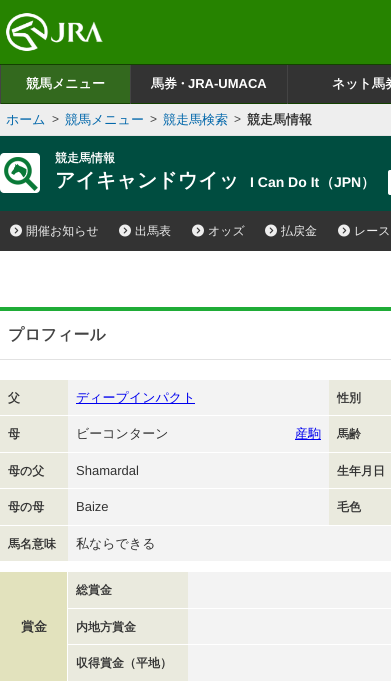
import math
import cairo

surface = cairo.ImageSurface(cairo.Format.RGB24, 391, 696)
ctx = cairo.Context(surface)
options = cairo.FontOptions()
options.set_hint_metrics(cairo.HintMetrics.OFF)
options.set_hint_style(cairo.HintStyle.NONE)
ctx.set_font_options(options)
ctx.set_miter_limit(4)


def ink(r, g, b):
    ctx.set_source_rgb(r / 255, g / 255, b / 255)


def write(x, y, s, family, size, color, bold=False, italic=False):
    ctx.select_font_face(family, cairo.FontSlant.ITALIC if italic else cairo.FontSlant.NORMAL, cairo.FontWeight.BOLD if bold else cairo.FontWeight.NORMAL)
    ctx.set_font_size(size)
    ink(*color)
    ctx.move_to(x, y)
    ctx.show_text(s)


def write_spaced(x, y, s, letter, word):
    ctx.move_to(x, y)
    for ch in s:
        ctx.show_text(ch)
        ctx.rel_move_to(letter + word * (ch == ' '), 0)


def block(x, y, w, h, *color):
    ink(*color)
    ctx.rectangle(x, y, w, h)
    ctx.fill()


def round_path(x, y, w, h, r):
    ctx.new_sub_path()
    for i, (u, v) in enumerate([(x + w - r, y + h - r), (x + r, y + h - r), (x + r, y + r), (x + w - r, y + r)]):
        ctx.arc(u, v, r, i * math.pi / 2, (i + 1) * math.pi / 2)
    ctx.close_path()


def paste(path, x, y, w, h):
    ctx.save()
    ctx.set_source_surface(cairo.ImageSurface.create_from_png(path), x, y)
    ctx.rectangle(x, y, w, h)
    ctx.fill()
    ctx.restore()


s1 = dict(family="WenQuanYi Zen Hei", size=13, color=(255, 255, 255), bold=True)
s2 = dict(family="Liberation Sans", size=13, color=(255, 255, 255), bold=True)
s3 = dict(family="WenQuanYi Zen Hei Medium", size=13, color=(0, 102, 170))
s4 = dict(family="Liberation Sans", size=12, color=(68, 68, 68))
s5 = dict(family="WenQuanYi Zen Hei", size=13, color=(51, 51, 51), bold=True)
s6 = dict(family="WenQuanYi Zen Hei", size=12, color=(255, 255, 255), bold=True)
s7 = dict(family="WenQuanYi Zen Hei", size=20, color=(255, 255, 255), bold=True)
s8 = dict(family="Liberation Sans", size=14, color=(255, 255, 255), bold=True)
s9 = dict(family="WenQuanYi Zen Hei", size=14, color=(255, 255, 255), bold=True)
s10 = dict(family="WenQuanYi Zen Hei Medium", size=12, color=(238, 238, 238))
s11 = dict(family="WenQuanYi Zen Hei", size=16, color=(68, 68, 68), bold=True)
s12 = dict(family="WenQuanYi Zen Hei", size=12, color=(51, 51, 51), bold=True)
s13 = dict(family="WenQuanYi Zen Hei Medium", size=13, color=(0, 0, 238))
s14 = dict(family="WenQuanYi Zen Hei Medium", size=13, color=(51, 51, 51))
s15 = dict(family="Liberation Sans", size=13, color=(51, 51, 51))

ink(255, 255, 255)
ctx.paint()
block(0, 0, 391, 64, 38, 131, 0)
paste("pic1.png", 6, 13, 97, 39)
block(131, 65, 260, 38, 51, 51, 51)
block(0, 64, 391, 1, 19, 65, 0)
block(0, 103, 391, 1, 19, 65, 0)
block(0, 65, 1, 39, 68, 68, 68)
block(1, 65, 129, 38, 51, 105, 30)
write(26, 88, "競馬メニュー", **s1)
block(130, 65, 1, 39, 68, 68, 68)
write(151, 88, "馬券", **s1)
write_spaced(176, 88, "・", -1, 0)
write(188, 88, "JRA-UMACA", **s2)
block(287, 65, 1, 39, 68, 68, 68)
write(332, 88, "ネット馬券", **s1)
block(0, 104, 391, 31, 238, 238, 238)
block(0, 135, 391, 1, 227, 227, 227)
write(6, 124, "ホーム", **s3)
write(52, 123, ">", **s4)
write(65, 124, "競馬メニュー", **s3)
write(150, 123, ">", **s4)
write(163, 124, "競走馬検索", **s3)
write(234, 123, ">", **s4)
write(247, 124, "競走馬情報", **s5)
block(0, 136, 391, 75, 0, 77, 64)
paste("pic2.png", 0, 153, 40, 40)
write(55, 162, "競走馬情報", **s6)
write(55, 187, "アイキャンドウイッ", **s7)
write(250, 187, "I Can Do It", **s8)
write(320, 187, "（", **s9)
write(334, 187, "JPN", **s8)
write(361, 187, "）", **s9)
round_path(388, 170, 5, 25, 2)
ctx.fill()
block(0, 211, 391, 40, 51, 51, 51)
paste("pic3.png", 10, 224, 12, 13)
write(26, 235, "開催お知らせ", **s10)
paste("pic3.png", 119, 224, 12, 13)
write(135, 235, "出馬表", **s10)
paste("pic3.png", 192, 224, 12, 13)
write(208, 235, "オッズ", **s10)
paste("pic3.png", 265, 224, 12, 13)
write(281, 235, "払戻金", **s10)
paste("pic3.png", 338, 224, 12, 13)
write(354, 235, "レース", **s10)
block(0, 307, 391, 4, 31, 172, 55)
block(0, 359, 391, 1, 226, 226, 226)
write(8, 340, "プロフィール", **s11)
block(0, 380, 68, 35, 234, 234, 222)
write(8, 402, "父", **s12)
block(68, 380, 261, 35, 243, 243, 243)
block(76, 403, 119, 1, 0, 0, 238)
write(76, 402, "ディープインパクト", **s13)
block(329, 380, 62, 35, 234, 234, 222)
write(337, 402, "性別", **s12)
block(0, 416, 68, 36, 234, 234, 222)
write(8, 438, "母", **s12)
block(68, 416, 261, 36, 243, 243, 243)
write(76, 438, "ビーコンターン", **s14)
block(295, 439, 26, 1, 0, 0, 238)
write(295, 438, "産駒", **s13)
block(329, 416, 62, 36, 234, 234, 222)
write(337, 438, "馬齢", **s12)
block(0, 453, 68, 35, 234, 234, 222)
write(8, 475, "母の父", **s12)
block(68, 453, 261, 35, 243, 243, 243)
write(76, 475, "Shamardal", **s15)
block(329, 453, 62, 35, 234, 234, 222)
write(337, 475, "生年月日", **s12)
block(0, 489, 68, 36, 234, 234, 222)
write(8, 511, "母の母", **s12)
block(68, 489, 261, 36, 243, 243, 243)
write(76, 511, "Baize", **s15)
block(329, 489, 62, 36, 234, 234, 222)
write(337, 511, "毛色", **s12)
block(0, 526, 68, 35, 234, 234, 222)
write(8, 548, "馬名意味", **s12)
block(68, 526, 323, 35, 243, 243, 243)
write(76, 548, "私ならできる", **s14)
block(0, 572, 67, 109, 226, 226, 189)
write(21, 631, "賞金", **s5)
block(68, 572, 120, 36, 234, 234, 222)
write(76, 594, "総賞金", **s12)
block(188, 572, 203, 36, 243, 243, 243)
block(68, 609, 120, 35, 234, 234, 222)
write(76, 631, "内地方賞金", **s12)
block(188, 609, 203, 35, 243, 243, 243)
block(68, 645, 120, 36, 234, 234, 222)
write(76, 667, "収得賞金（平地）", **s12)
block(188, 645, 203, 36, 243, 243, 243)
surface.write_to_png("screenshot.png")
